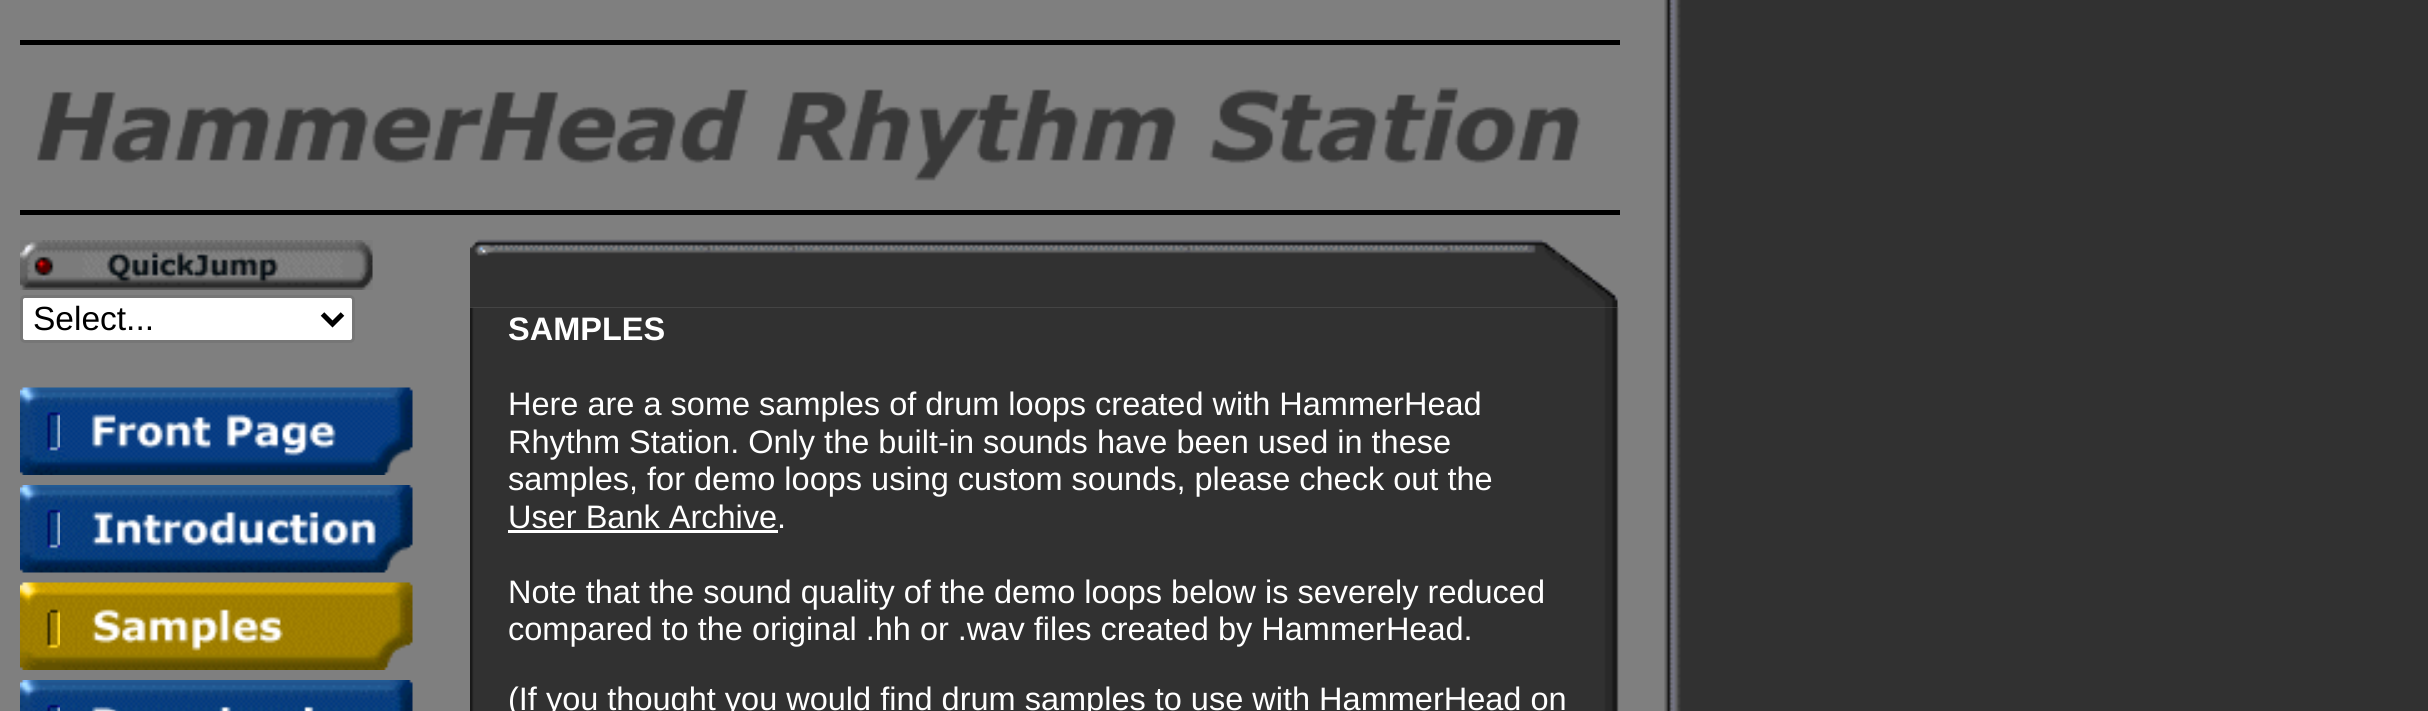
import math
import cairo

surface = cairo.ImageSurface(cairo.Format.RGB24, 2428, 711)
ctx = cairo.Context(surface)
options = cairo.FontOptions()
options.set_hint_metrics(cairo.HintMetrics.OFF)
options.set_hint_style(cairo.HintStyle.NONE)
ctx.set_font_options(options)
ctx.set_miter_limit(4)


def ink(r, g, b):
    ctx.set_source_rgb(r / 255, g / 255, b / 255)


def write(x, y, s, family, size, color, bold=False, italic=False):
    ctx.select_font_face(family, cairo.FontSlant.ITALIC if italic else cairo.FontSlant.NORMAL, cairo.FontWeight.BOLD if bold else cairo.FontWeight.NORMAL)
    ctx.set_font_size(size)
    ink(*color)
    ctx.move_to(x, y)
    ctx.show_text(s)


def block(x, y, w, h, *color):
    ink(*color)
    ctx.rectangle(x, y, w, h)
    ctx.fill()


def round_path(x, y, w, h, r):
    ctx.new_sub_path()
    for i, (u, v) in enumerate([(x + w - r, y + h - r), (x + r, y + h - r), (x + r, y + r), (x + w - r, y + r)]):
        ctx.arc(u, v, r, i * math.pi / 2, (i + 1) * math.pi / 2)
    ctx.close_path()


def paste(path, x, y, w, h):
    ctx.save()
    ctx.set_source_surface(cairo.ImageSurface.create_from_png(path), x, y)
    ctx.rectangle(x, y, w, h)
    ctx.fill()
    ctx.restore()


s1 = dict(family="Liberation Sans", size=33.5, color=(0, 0, 0))
s2 = dict(family="Liberation Sans", size=32.5, color=(255, 255, 255), bold=True)
s3 = dict(family="Liberation Sans", size=32.5, color=(255, 255, 255))

ink(127, 127, 127)
ctx.paint()
paste("pic1.png", 1664, 0, 764, 711)
block(20, 40, 1600, 5, 0, 0, 0)
paste("pic2.png", 37, 87, 1544, 94)
block(20, 210, 1600, 5, 0, 0, 0)
paste("pic3.png", 20, 240, 353, 50)
ink(255, 255, 255)
round_path(21.5, 296.5, 332, 45, 3.5)
ctx.fill_preserve()
ink(118, 118, 118)
ctx.set_line_width(3)
ctx.stroke()
ctx.new_path()
ctx.move_to(322.5, 314)
ctx.line_to(332.5, 324)
ctx.line_to(342.5, 314)
ink(0, 0, 0)
ctx.set_line_width(5)
ctx.stroke()
write(33, 330, "Select...", **s1)
paste("pic4.png", 20, 387, 40, 88)
paste("pic5.png", 60, 387, 353, 88)
paste("pic6.png", 20, 485, 40, 88)
paste("pic7.png", 60, 485, 353, 88)
paste("pic8.png", 20, 582, 40, 88)
paste("pic9.png", 60, 582, 353, 88)
paste("pic10.png", 20, 680, 40, 31)
paste("pic11.png", 60, 680, 353, 31)
paste("pic13.png", 470, 307, 1149, 404)
paste("pic12.png", 470, 239, 1148, 69)
write(508, 340, "SAMPLES", **s2)
write(508, 415, "Here are a some samples of drum loops created with HammerHead", **s3)
write(508, 453, "Rhythm Station. Only the built-in sounds have been used in these", **s3)
write(508, 490, "samples, for demo loops using custom sounds, please check out the", **s3)
write(508, 528, "User Bank Archive.", **s3)
block(508, 530, 270, 3, 255, 255, 255)
write(508, 603, "Note that the sound quality of the demo loops below is severely reduced", **s3)
write(508, 640, "compared to the original .hh or .wav files created by HammerHead.", **s3)
write(508, 710, "(If you thought you would find drum samples to use with HammerHead on", **s3)
surface.write_to_png("screenshot.png")
